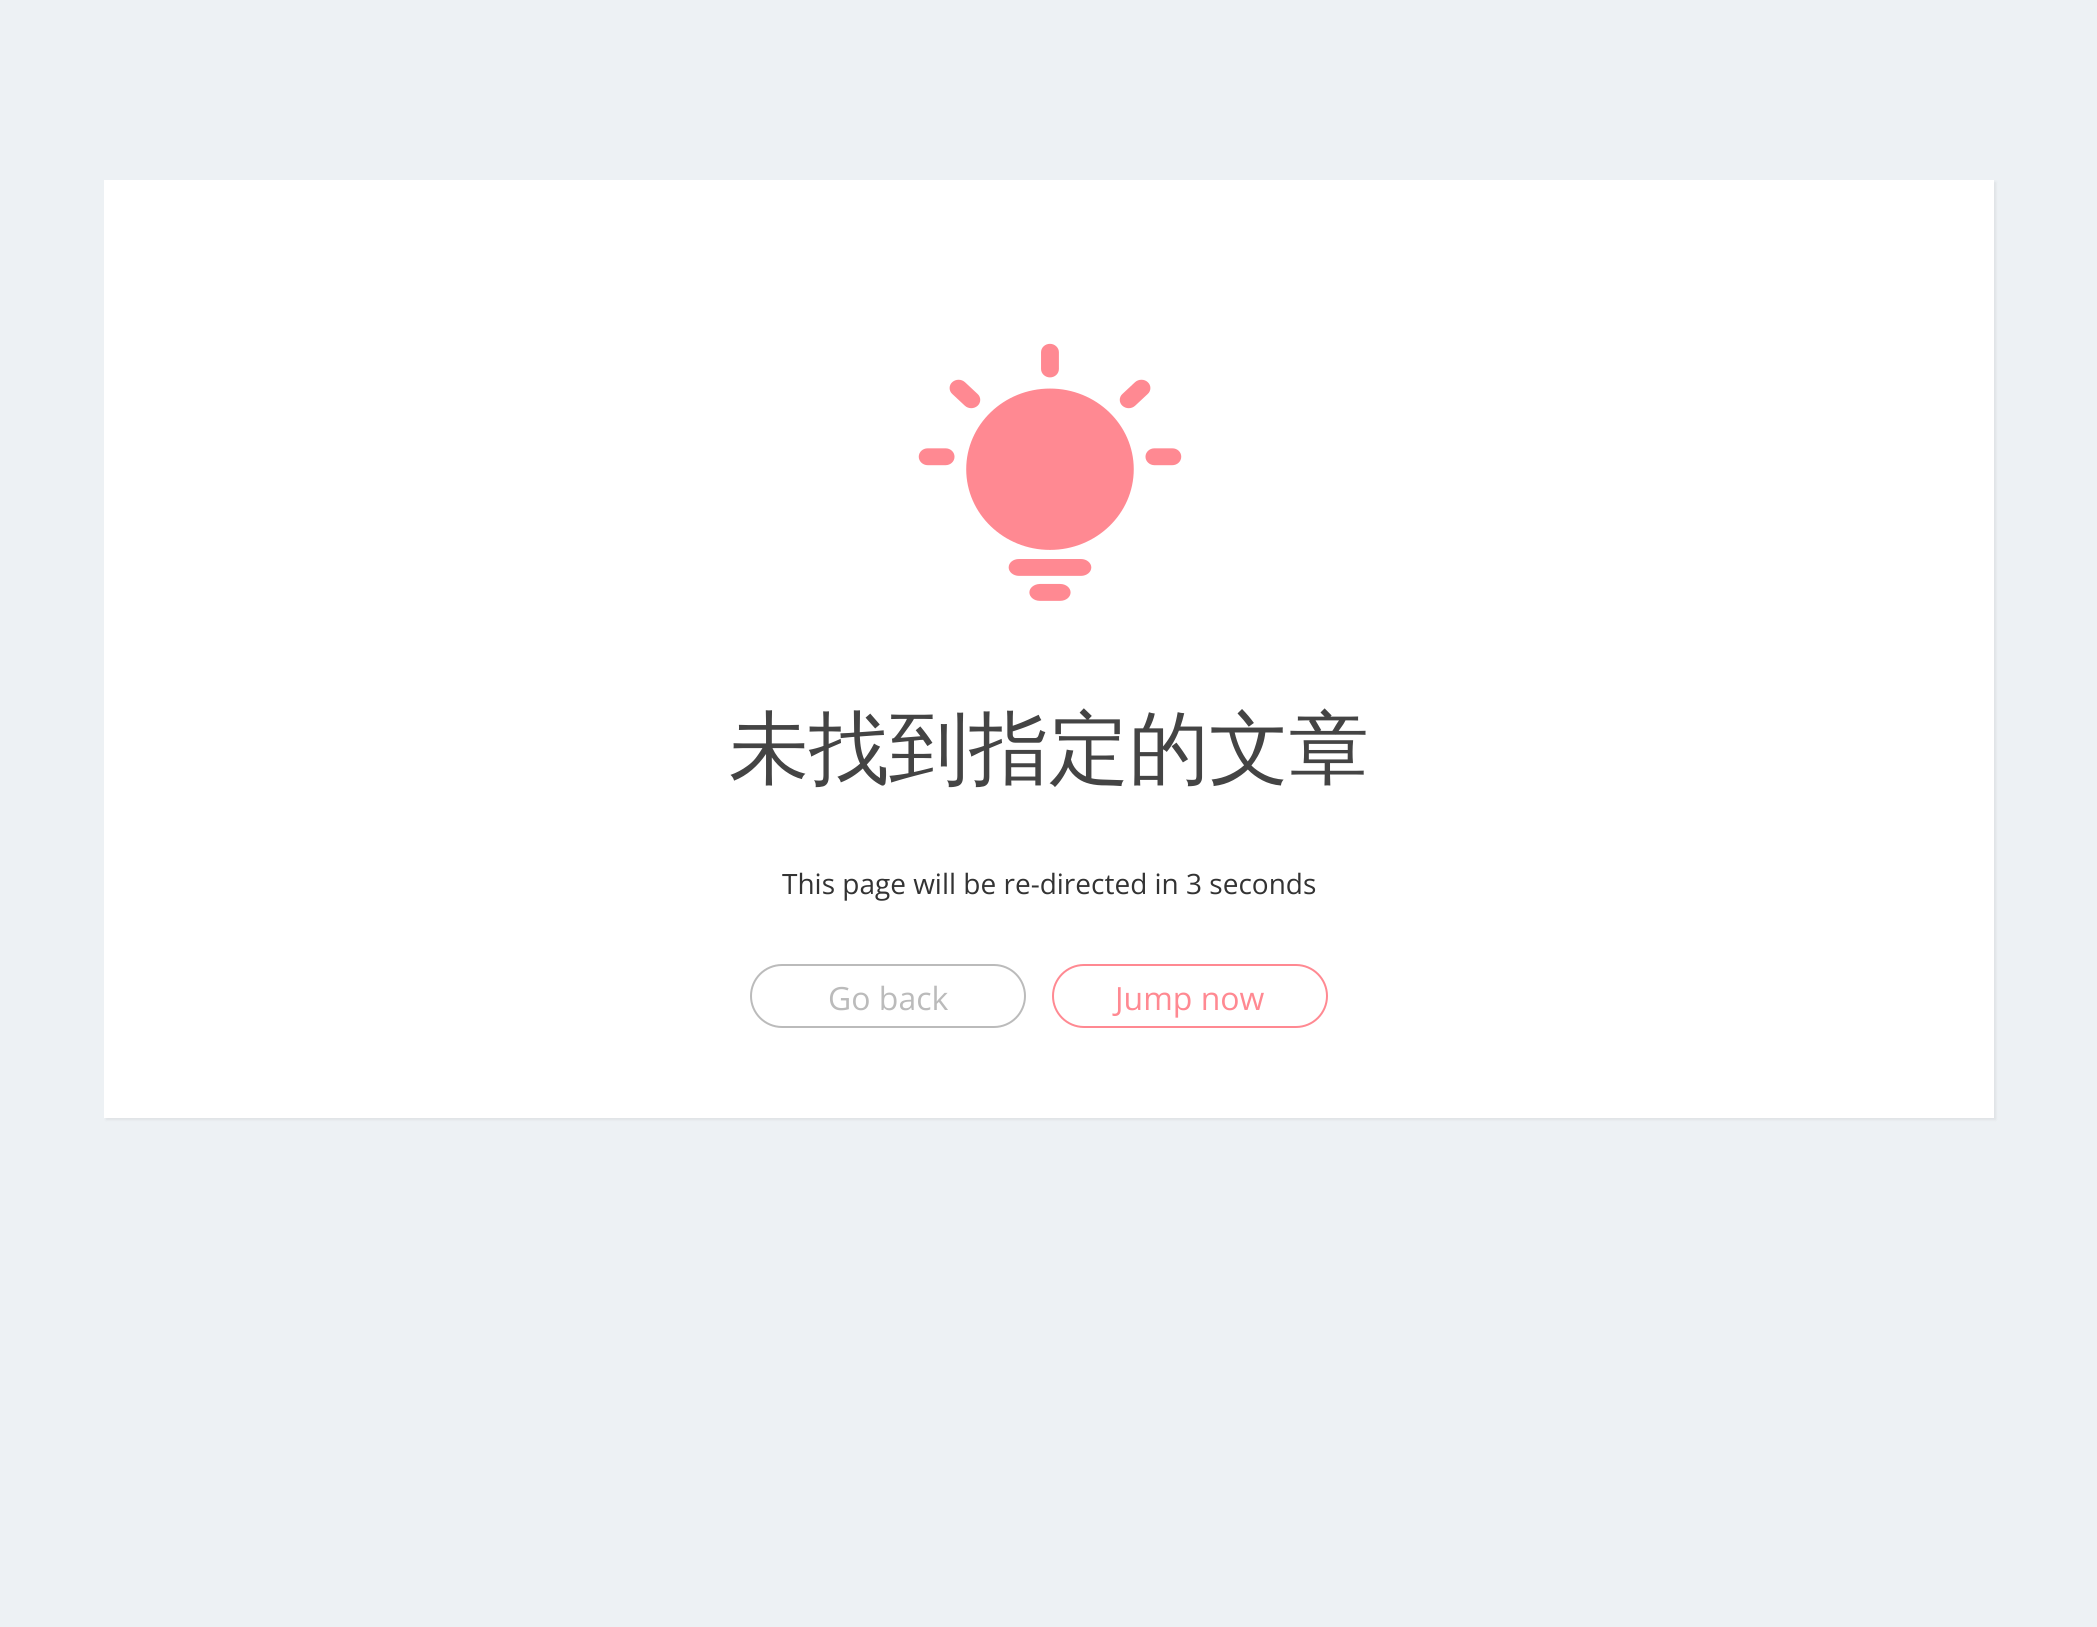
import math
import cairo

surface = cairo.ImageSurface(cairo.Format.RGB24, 2097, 1627)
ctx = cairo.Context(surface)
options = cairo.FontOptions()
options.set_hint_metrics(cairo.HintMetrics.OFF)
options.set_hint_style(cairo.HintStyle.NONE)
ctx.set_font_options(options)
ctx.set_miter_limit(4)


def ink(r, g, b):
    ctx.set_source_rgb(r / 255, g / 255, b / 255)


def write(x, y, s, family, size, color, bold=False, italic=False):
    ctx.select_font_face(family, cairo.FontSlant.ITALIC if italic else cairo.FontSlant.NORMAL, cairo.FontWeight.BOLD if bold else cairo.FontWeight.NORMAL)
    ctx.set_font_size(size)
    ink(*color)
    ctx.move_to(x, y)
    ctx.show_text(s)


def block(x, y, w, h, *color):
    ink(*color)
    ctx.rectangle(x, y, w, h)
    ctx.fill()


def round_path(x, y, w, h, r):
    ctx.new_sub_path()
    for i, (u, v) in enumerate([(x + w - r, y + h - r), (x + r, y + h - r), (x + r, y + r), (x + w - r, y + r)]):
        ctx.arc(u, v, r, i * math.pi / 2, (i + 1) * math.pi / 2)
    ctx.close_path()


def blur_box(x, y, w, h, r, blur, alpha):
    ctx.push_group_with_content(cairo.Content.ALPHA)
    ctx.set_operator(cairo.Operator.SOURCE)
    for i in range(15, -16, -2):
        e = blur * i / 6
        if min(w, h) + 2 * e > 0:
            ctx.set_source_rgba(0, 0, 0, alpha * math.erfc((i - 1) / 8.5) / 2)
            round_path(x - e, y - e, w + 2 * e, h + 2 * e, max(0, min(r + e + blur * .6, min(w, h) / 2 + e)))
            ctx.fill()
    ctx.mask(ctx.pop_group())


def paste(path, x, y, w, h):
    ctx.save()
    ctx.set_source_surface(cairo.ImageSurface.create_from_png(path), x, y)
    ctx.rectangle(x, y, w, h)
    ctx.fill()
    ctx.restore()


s1 = dict(family="WenQuanYi Zen Hei Medium", size=80, color=(68, 68, 68))
s2 = dict(family="Open Sans", size=28, color=(51, 51, 51))
s3 = dict(family="Open Sans", size=32, color=(187, 187, 187))
s4 = dict(family="Open Sans", size=32, color=(255, 137, 146))

ink(237, 241, 244)
ctx.paint()
ink(99, 99, 99)
blur_box(106, 182, 1890, 938, 0, 1, 0.1)
block(104, 180, 1890, 938, 255, 255, 255)
paste("pic1.png", 918, 343, 264, 258)
write(729, 776, "未找到指定的文章", **s1)
write(782, 894, "This page will be re-directed in 3 seconds", **s2)
round_path(751, 965, 274, 62, 31)
ink(187, 187, 187)
ctx.stroke()
write(828, 1010, "Go back", **s3)
round_path(1053, 965, 274, 62, 31)
ink(255, 137, 146)
ctx.stroke()
write(1115, 1010, "Jump now", **s4)
surface.write_to_png("screenshot.png")
